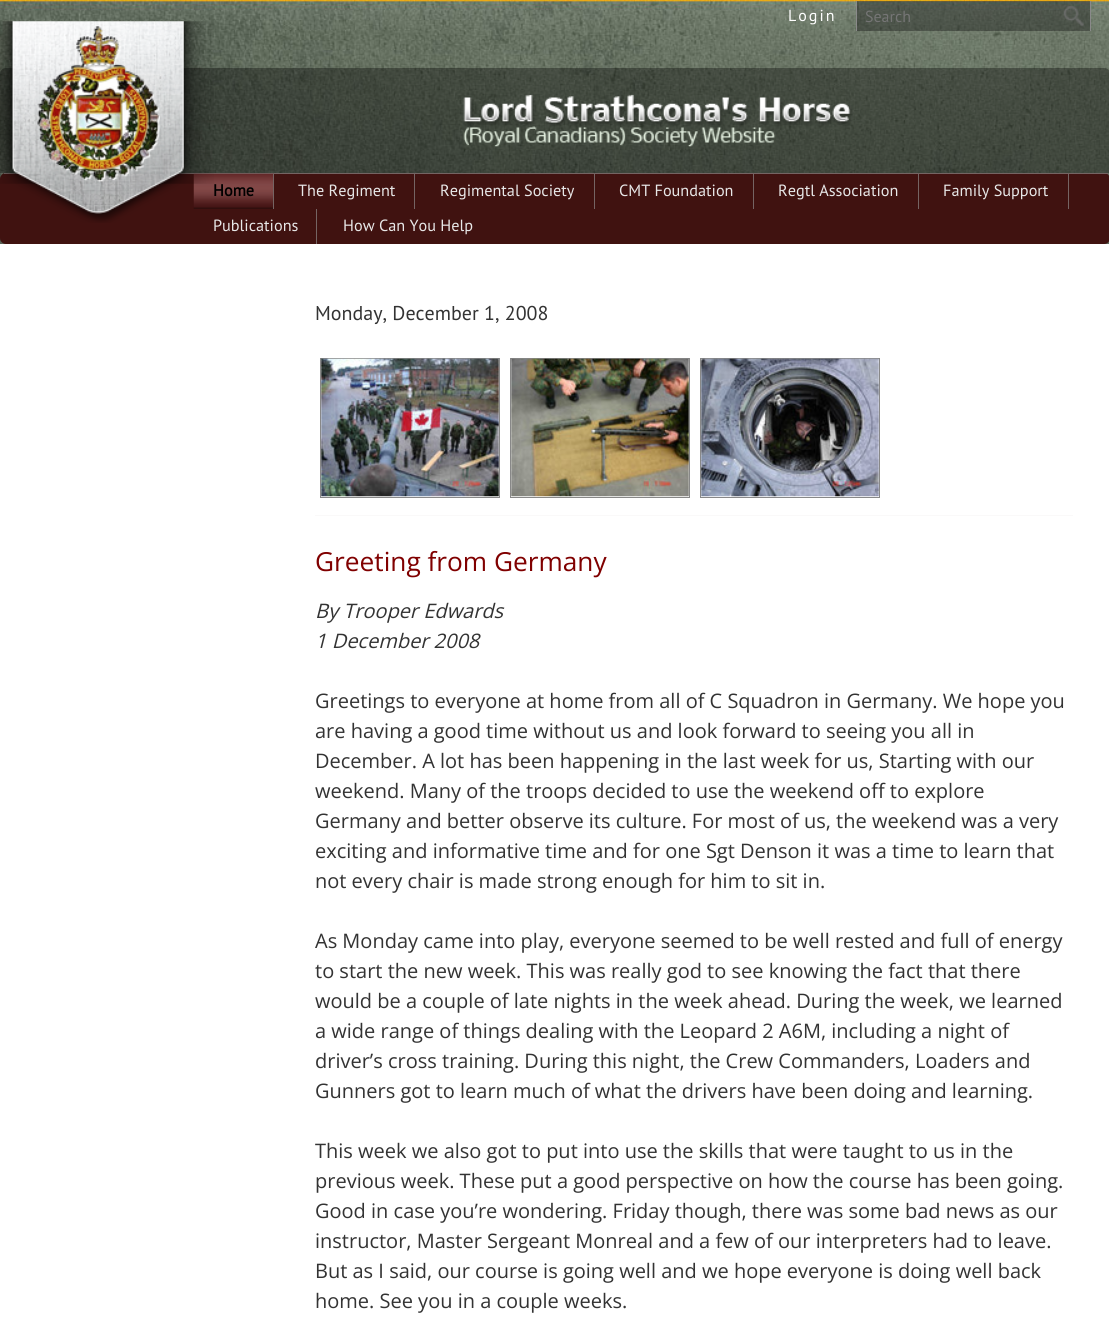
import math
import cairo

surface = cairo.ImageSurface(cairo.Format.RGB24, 1109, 1319)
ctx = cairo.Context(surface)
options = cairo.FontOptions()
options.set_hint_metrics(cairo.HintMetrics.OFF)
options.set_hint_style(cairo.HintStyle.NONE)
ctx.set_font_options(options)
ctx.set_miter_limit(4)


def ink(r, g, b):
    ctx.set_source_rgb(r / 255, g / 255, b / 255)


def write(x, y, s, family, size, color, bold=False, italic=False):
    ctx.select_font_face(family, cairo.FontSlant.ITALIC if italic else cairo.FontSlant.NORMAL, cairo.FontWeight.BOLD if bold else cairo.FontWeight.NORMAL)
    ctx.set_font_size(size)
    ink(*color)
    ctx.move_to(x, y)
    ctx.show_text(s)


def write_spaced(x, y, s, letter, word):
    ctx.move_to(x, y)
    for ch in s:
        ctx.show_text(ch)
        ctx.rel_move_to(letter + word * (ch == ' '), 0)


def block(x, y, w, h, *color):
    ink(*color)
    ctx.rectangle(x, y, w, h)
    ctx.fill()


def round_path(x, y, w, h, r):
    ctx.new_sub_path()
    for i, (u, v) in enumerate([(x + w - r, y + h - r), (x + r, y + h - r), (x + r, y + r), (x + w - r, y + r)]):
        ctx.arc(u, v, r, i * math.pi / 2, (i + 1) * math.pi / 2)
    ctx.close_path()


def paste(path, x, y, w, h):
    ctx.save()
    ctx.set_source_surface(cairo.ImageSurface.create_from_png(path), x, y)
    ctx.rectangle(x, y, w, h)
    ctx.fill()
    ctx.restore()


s1 = dict(family="PT Sans", size=16, color=(117, 117, 117))
s2 = dict(family="PT Sans", size=16.25, color=(0, 0, 0), bold=True)
s3 = dict(family="PT Sans", size=16.25, color=(232, 232, 232))
s4 = dict(family="PT Sans", size=20, color=(51, 51, 51))
s5 = dict(family="Open Sans", size=26.25, color=(128, 0, 0))
s6 = dict(family="Open Sans", size=20, color=(51, 51, 51), italic=True)
s7 = dict(family="Open Sans", size=20, color=(51, 51, 51))

ink(255, 255, 255)
ctx.paint()
paste("pic1.png", 0, 0, 1109, 244)
ctx.select_font_face("PT Sans")
ctx.set_font_size(16)
ink(255, 255, 255)
write_spaced(788, 21, "Login", 2, 0)
ctx.set_source_rgba(0.082, 0.082, 0.082, 0.4)
ctx.rectangle(857, 1, 233, 30)
ctx.fill()
block(1090, 1, 1, 30, 138, 138, 138)
block(856, 1, 1, 30, 138, 138, 138)
write(865, 22, "Search", **s1)
paste("pic2.png", 1063, 6, 21, 21)
ctx.set_source_rgba(0, 0, 0, 0.35)
ctx.new_path()
ctx.move_to(6, 68)
ctx.line_to(1104, 68)
ctx.curve_to(1107.5, 68, 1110, 70.5, 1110, 74)
ctx.line_to(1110, 173)
ctx.line_to(0, 173)
ctx.line_to(0, 74)
ctx.curve_to(0, 70.5, 2.5, 68, 6, 68)
ctx.close_path()
ctx.fill()
ink(64, 18, 16)
round_path(0, 173, 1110, 71, 6)
ctx.fill()
block(4, 173, 1104, 1, 117, 100, 99)
paste("pic5.png", 193, 173, 81, 36)
write(213, 196, "Home", **s2)
write(213, 231, "Publications", **s3)
paste("pic3.png", 0, 21, 214, 202)
paste("pic4.png", 463, 94, 390, 53)
block(273, 174, 1, 35, 117, 100, 99)
block(414, 174, 1, 35, 117, 100, 99)
write(298, 196, "The Regiment", **s3)
block(594, 174, 1, 35, 117, 100, 99)
write(440, 196, "Regimental Society", **s3)
block(753, 174, 1, 35, 117, 100, 99)
write(619, 196, "CMT Foundation", **s3)
block(918, 174, 1, 35, 117, 100, 99)
write(778, 196, "Regtl Association", **s3)
block(1068, 174, 1, 35, 117, 100, 99)
write(943, 196, "Family Support", **s3)
block(316, 209, 1, 35, 117, 100, 99)
write(343, 231, "How Can You Help", **s3)
write(315, 320, "Monday, December 1, 2008", **s4)
block(315, 515, 758, 1, 250, 249, 249)
ctx.rectangle(320.5, 358.5, 179, 139)
ink(136, 136, 136)
ctx.set_line_width(1)
ctx.stroke()
paste("pic6.png", 321, 358, 178, 139)
ctx.rectangle(510.5, 358.5, 179, 139)
ctx.stroke()
paste("pic7.png", 511, 358, 178, 139)
ctx.rectangle(700.5, 358.5, 179, 139)
ctx.stroke()
paste("pic8.png", 701, 358, 178, 139)
write(315, 571, "Greeting from Germany", **s5)
write(315, 618, "By Trooper Edwards", **s6)
write(315, 648, "1 December 2008", **s6)
write(315, 708, "Greetings to everyone at home from all of C Squadron in Germany. We hope you", **s7)
write(315, 738, "are having a good time without us and look forward to seeing you all in", **s7)
write(315, 768, "December. A lot has been happening in the last week for us, Starting with our", **s7)
write(315, 798, "weekend. Many of the troops decided to use the weekend off to explore", **s7)
write(315, 828, "Germany and better observe its culture. For most of us, the weekend was a very", **s7)
write(315, 858, "exciting and informative time and for one Sgt Denson it was a time to learn that", **s7)
write(315, 888, "not every chair is made strong enough for him to sit in.", **s7)
write(315, 948, "As Monday came into play, everyone seemed to be well rested and full of energy", **s7)
write(315, 978, "to start the new week. This was really god to see knowing the fact that there", **s7)
write(315, 1008, "would be a couple of late nights in the week ahead. During the week, we learned", **s7)
write(315, 1038, "a wide range of things dealing with the Leopard 2 A6M, including a night of", **s7)
write(315, 1068, "driver’s cross training. During this night, the Crew Commanders, Loaders and", **s7)
write(315, 1098, "Gunners got to learn much of what the drivers have been doing and learning.", **s7)
write(315, 1158, "This week we also got to put into use the skills that were taught to us in the", **s7)
write(315, 1188, "previous week. These put a good perspective on how the course has been going.", **s7)
write(315, 1218, "Good in case you’re wondering. Friday though, there was some bad news as our", **s7)
write(315, 1248, "instructor, Master Sergeant Monreal and a few of our interpreters had to leave.", **s7)
write(315, 1278, "But as I said, our course is going well and we hope everyone is doing well back", **s7)
write(315, 1308, "home. See you in a couple weeks.", **s7)
surface.write_to_png("screenshot.png")
